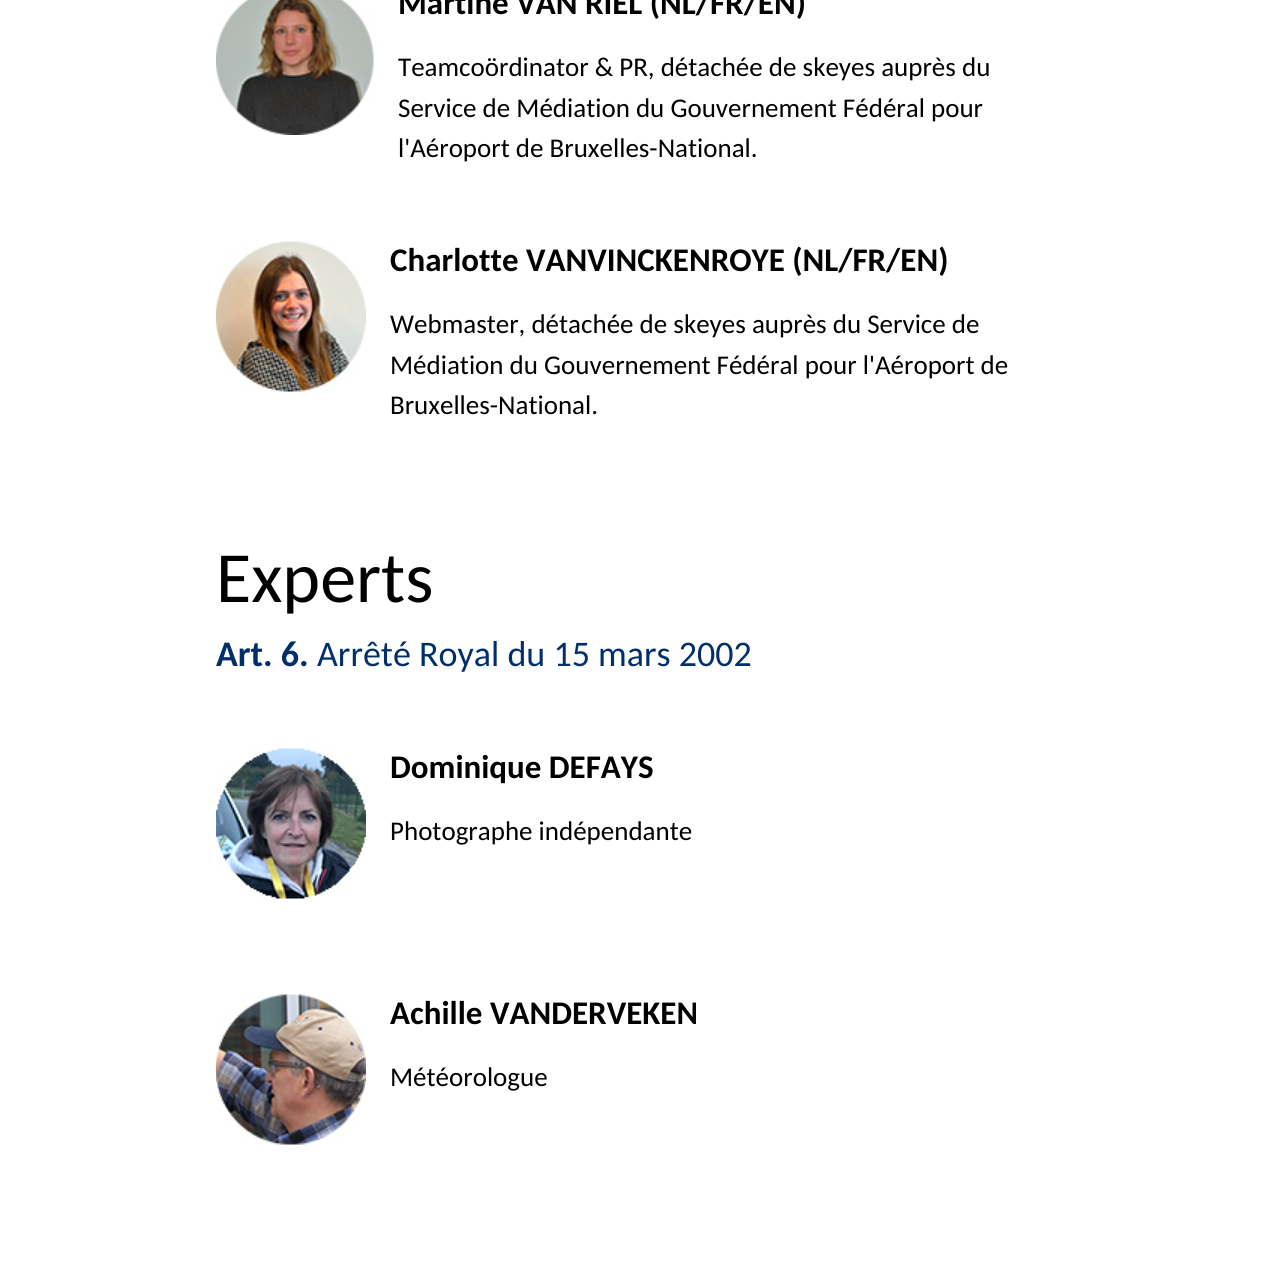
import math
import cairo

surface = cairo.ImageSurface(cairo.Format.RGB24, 1281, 1266)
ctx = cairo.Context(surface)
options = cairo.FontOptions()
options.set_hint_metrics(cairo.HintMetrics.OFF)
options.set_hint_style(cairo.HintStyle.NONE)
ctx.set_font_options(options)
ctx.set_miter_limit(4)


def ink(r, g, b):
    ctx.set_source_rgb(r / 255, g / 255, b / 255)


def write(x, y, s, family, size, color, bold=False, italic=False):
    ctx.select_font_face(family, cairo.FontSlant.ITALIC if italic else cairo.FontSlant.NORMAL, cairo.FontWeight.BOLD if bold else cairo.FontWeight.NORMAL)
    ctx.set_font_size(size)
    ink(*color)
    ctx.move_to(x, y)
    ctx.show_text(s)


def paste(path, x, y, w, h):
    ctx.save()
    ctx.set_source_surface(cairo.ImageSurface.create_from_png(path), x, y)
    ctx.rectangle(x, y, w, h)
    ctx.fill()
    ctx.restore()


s1 = dict(family="Carlito", size=33, color=(0, 0, 0), bold=True)
s2 = dict(family="Carlito", size=27, color=(0, 0, 0))
s3 = dict(family="Carlito", size=72, color=(0, 0, 0))
s4 = dict(family="Carlito", size=36, color=(0, 47, 108), bold=True)
s5 = dict(family="Carlito", size=36, color=(0, 47, 108))

ink(255, 255, 255)
ctx.paint()
paste("pic1.png", 216, 0, 158, 135)
write(398, 14, "Martine VAN RIEL (NL/FR/EN)", **s1)
write(398, 76, "Teamcoördinator & PR, détachée de skeyes auprès du", **s2)
write(398, 117, "Service de Médiation du Gouvernement Fédéral pour", **s2)
write(398, 157, "l'Aéroport de Bruxelles-National.", **s2)
paste("pic2.png", 216, 241, 150, 151)
write(390, 271, "Charlotte VANVINCKENROYE (NL/FR/EN)", **s1)
write(390, 333, "Webmaster, détachée de skeyes auprès du Service de", **s2)
write(390, 374, "Médiation du Gouvernement Fédéral pour l'Aéroport de", **s2)
write(390, 414, "Bruxelles-National.", **s2)
write(216, 602, "Experts", **s3)
write(216, 666, "Art. 6.", **s4)
write(317, 666, "Arrêté Royal du 15 mars 2002", **s5)
paste("pic3.png", 216, 748, 150, 151)
write(390, 778, "Dominique DEFAYS", **s1)
write(390, 840, "Photographe indépendante", **s2)
paste("pic4.png", 216, 994, 150, 151)
write(390, 1024, "Achille VANDERVEKEN", **s1)
write(390, 1086, "Météorologue", **s2)
surface.write_to_png("screenshot.png")
